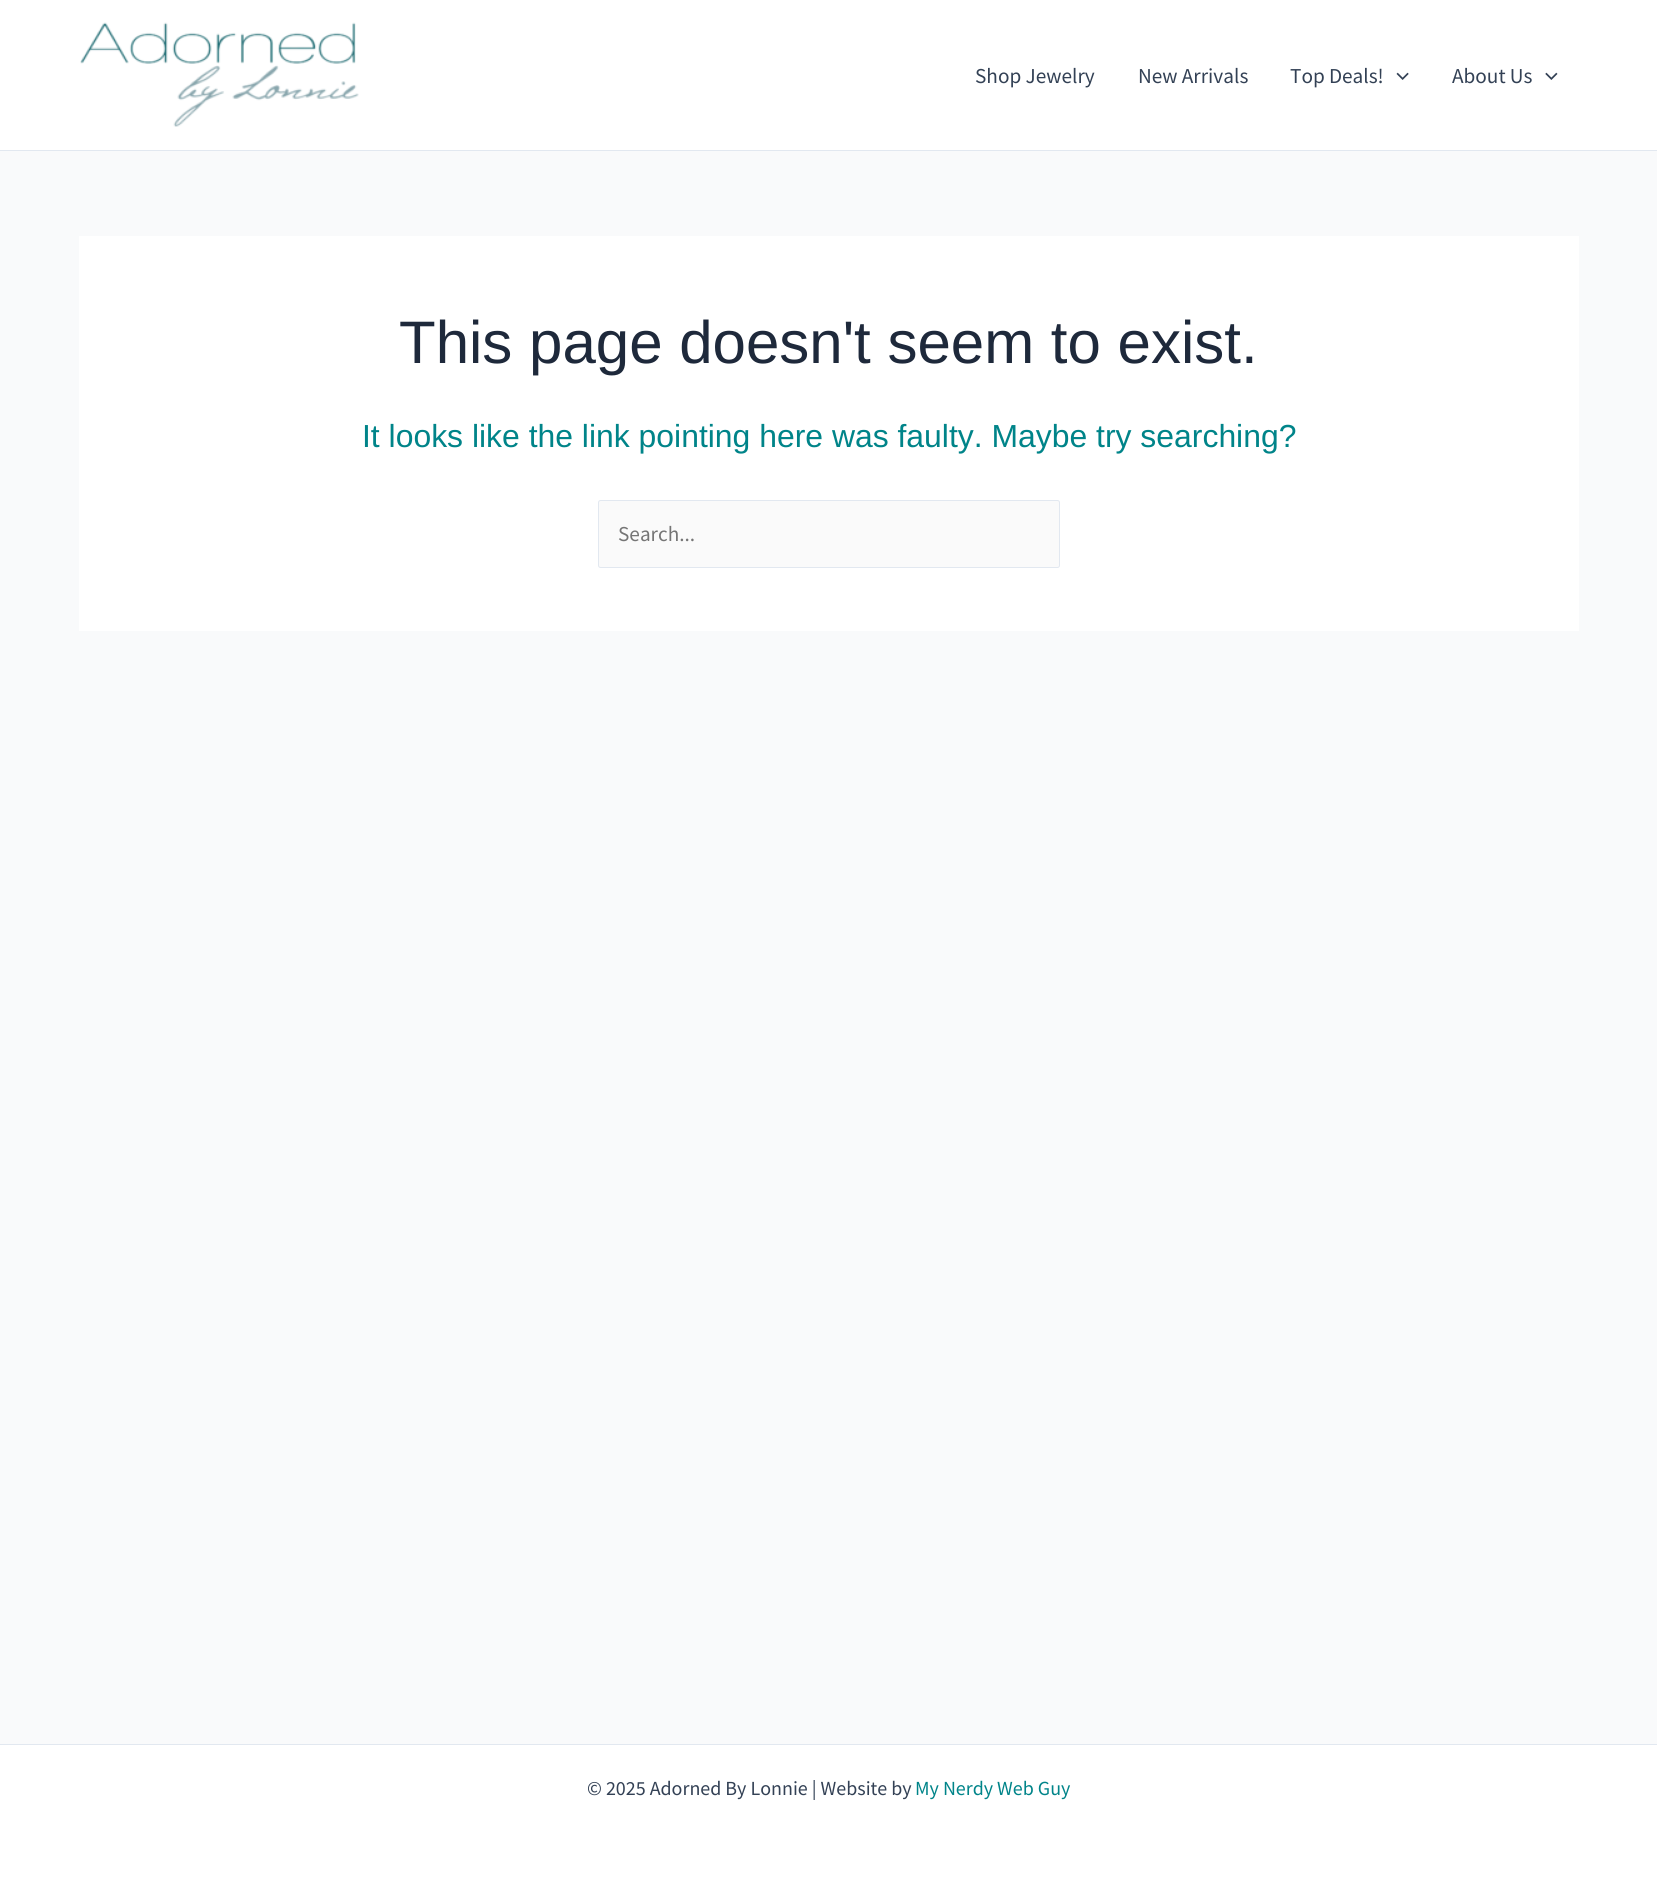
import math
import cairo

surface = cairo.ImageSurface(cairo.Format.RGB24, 1657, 1894)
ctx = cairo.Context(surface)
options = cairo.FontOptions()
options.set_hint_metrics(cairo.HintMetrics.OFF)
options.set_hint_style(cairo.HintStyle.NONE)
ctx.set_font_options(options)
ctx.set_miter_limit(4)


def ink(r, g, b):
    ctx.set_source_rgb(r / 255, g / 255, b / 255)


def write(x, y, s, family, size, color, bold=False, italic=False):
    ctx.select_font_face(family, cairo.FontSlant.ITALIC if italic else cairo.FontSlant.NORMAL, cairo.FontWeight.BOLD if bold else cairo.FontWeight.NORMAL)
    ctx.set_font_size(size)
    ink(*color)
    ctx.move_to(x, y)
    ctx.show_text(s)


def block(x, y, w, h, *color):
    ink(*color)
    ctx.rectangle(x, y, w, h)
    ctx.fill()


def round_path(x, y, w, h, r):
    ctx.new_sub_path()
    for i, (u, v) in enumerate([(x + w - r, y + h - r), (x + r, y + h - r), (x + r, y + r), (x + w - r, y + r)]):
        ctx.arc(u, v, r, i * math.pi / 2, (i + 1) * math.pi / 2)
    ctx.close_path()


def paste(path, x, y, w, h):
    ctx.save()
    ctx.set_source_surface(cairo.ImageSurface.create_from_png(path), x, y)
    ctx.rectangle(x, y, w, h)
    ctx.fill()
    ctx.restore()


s1 = dict(family="Source Sans Pro", size=21.25, color=(51, 65, 85))
s2 = dict(family="Liberation Sans", size=60, color=(30, 41, 59))
s3 = dict(family="Liberation Sans", size=31.9, color=(0, 132, 137))
s4 = dict(family="Source Sans Pro", size=21.25, color=(117, 117, 117))
s5 = dict(family="Source Sans Pro", size=20, color=(51, 65, 85))
s6 = dict(family="Source Sans Pro", size=20, color=(0, 132, 137))

ink(249, 250, 251)
ctx.paint()
block(0, 0, 1657, 150, 255, 255, 255)
block(0, 150, 1657, 1, 226, 232, 240)
paste("pic1.png", 80, 22, 279, 105)
write(975, 83, "Shop Jewelry", **s1)
write(1138, 83, "New Arrivals", **s1)
write(1290, 83, "Top Deals!", **s1)
paste("pic2.png", 1396, 72, 13, 8)
write(1452, 83, "About Us", **s1)
paste("pic3.png", 1545, 72, 13, 8)
block(79, 236, 1500, 395, 255, 255, 255)
write(399, 363, "This page doesn't seem to exist.", **s2)
write(362, 447, "It looks like the link pointing here was faulty. Maybe try searching?", **s3)
ink(250, 250, 250)
round_path(598.5, 500.5, 461, 67, 2)
ctx.fill_preserve()
ink(226, 232, 240)
ctx.set_line_width(1)
ctx.stroke()
write(618, 541, "Search...", **s4)
block(0, 1745, 1657, 149, 255, 255, 255)
block(0, 1744, 1657, 1, 226, 232, 240)
write(587, 1795, "© 2025 Adorned By Lonnie | Website by", **s5)
write(915, 1795, "My Nerdy Web Guy", **s6)
surface.write_to_png("screenshot.png")
